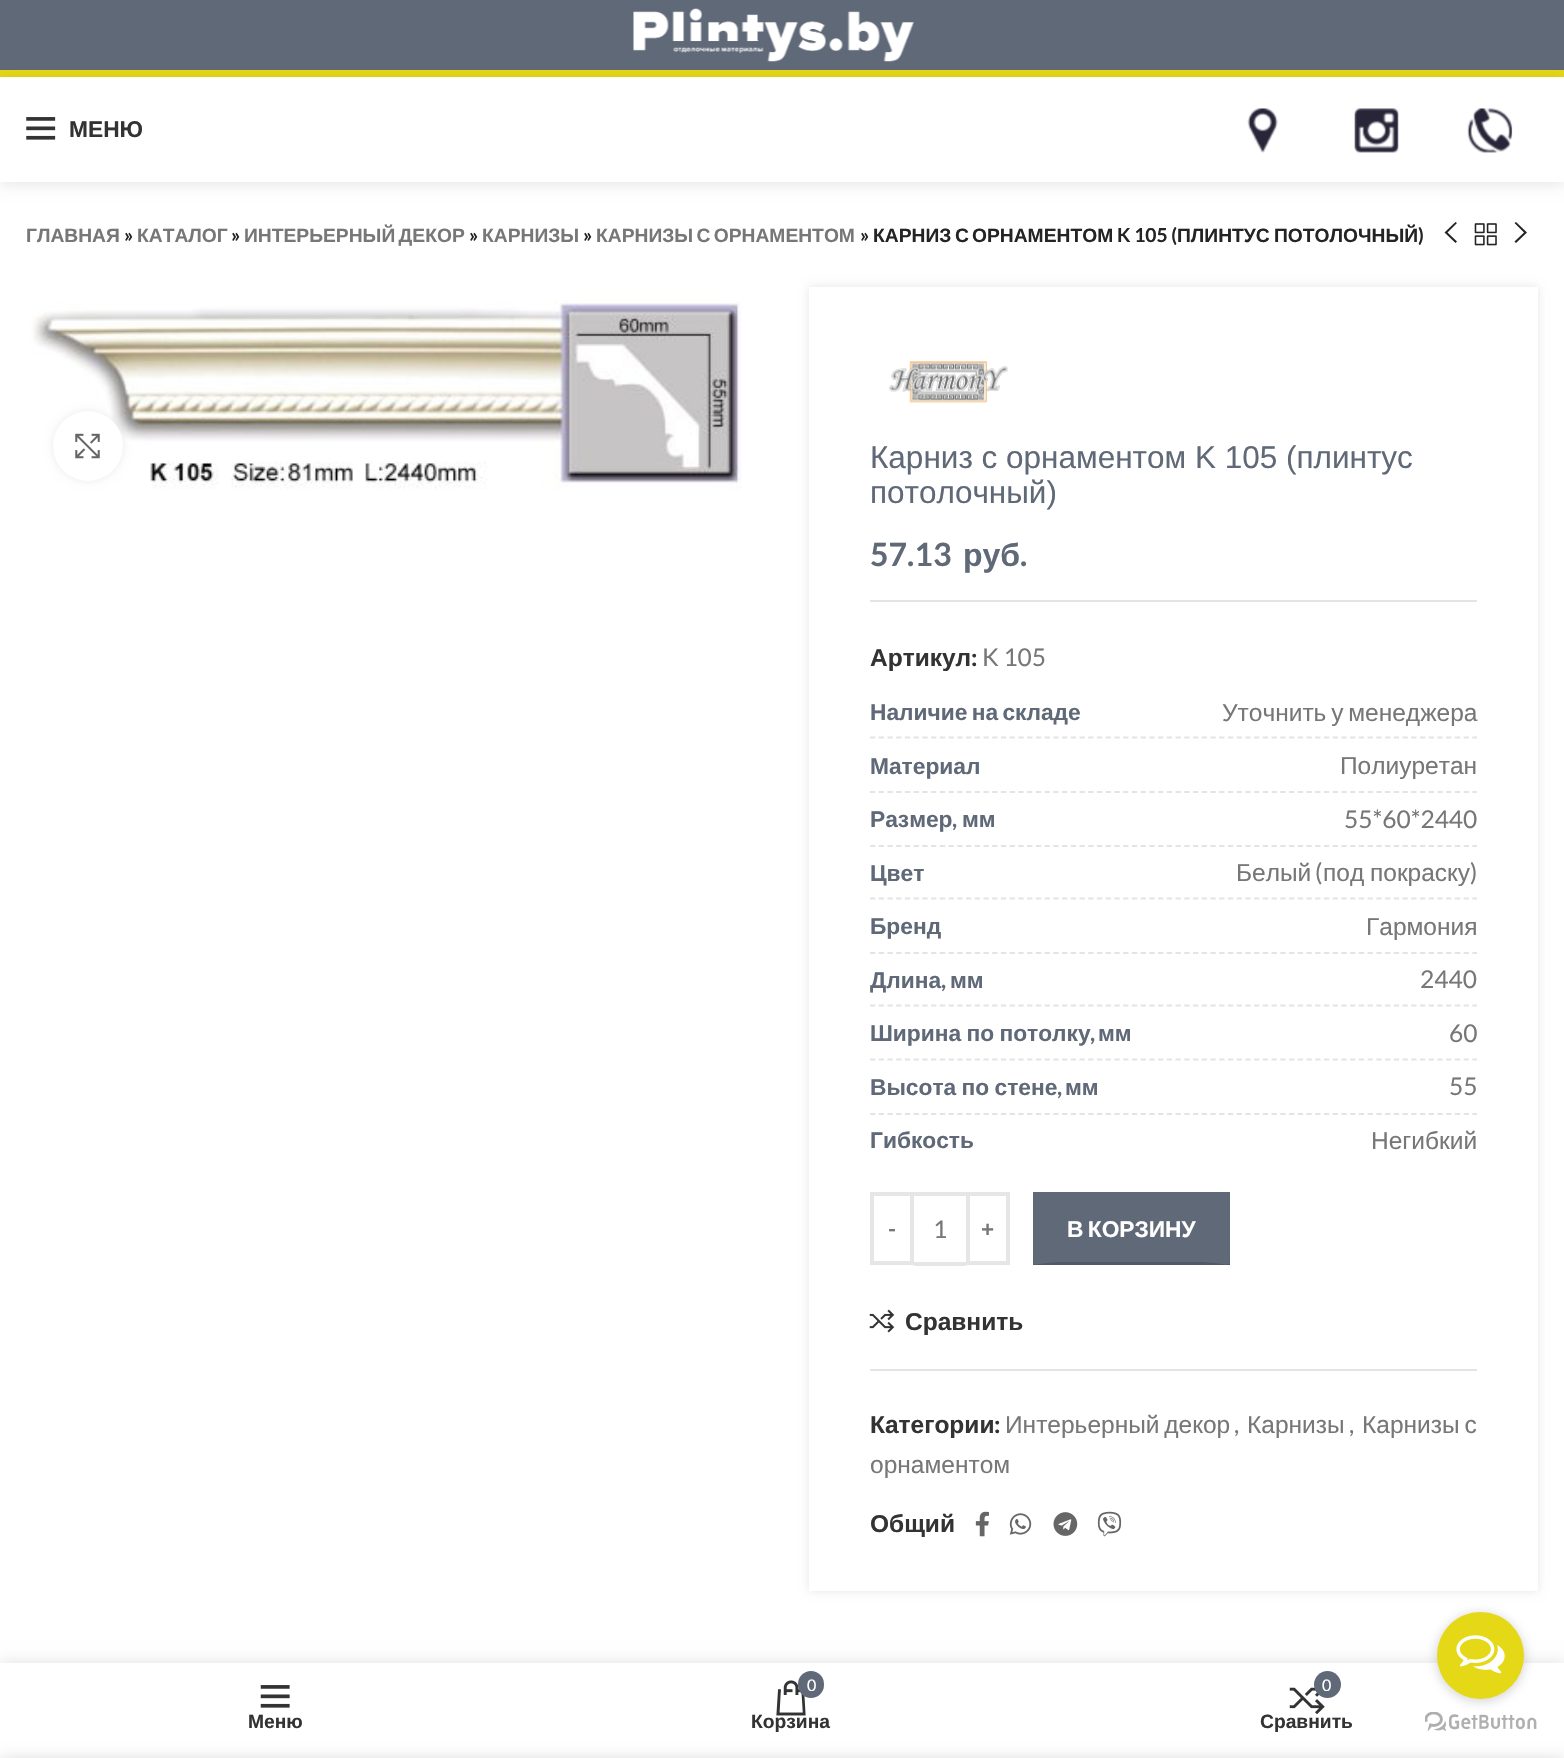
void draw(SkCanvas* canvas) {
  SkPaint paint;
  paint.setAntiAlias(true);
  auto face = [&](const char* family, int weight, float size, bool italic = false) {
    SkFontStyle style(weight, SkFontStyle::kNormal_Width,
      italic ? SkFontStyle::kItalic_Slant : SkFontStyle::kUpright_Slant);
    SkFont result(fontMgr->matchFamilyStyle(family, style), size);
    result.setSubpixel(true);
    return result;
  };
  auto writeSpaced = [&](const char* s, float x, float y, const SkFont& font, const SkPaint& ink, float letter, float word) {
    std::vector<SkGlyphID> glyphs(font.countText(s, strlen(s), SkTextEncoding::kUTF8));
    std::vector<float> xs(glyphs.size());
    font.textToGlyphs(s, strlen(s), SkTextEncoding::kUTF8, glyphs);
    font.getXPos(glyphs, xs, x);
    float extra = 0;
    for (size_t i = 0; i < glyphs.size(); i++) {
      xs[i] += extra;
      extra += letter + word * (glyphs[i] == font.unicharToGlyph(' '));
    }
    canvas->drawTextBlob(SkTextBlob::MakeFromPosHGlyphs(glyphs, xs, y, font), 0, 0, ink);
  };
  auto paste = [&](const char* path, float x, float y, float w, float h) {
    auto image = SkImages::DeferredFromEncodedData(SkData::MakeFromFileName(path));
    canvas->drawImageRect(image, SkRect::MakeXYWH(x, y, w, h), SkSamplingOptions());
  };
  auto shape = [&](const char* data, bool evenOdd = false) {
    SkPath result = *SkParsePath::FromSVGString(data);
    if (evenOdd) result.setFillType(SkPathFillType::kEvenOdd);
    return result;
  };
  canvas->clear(0xffffffff);
  paint.setColor(0xff606978);
  canvas->drawRect(SkRect::MakeXYWH(0, 0, 1564, 70), paint);
  paint.setColor(0xffe5d817);
  canvas->drawRect(SkRect::MakeXYWH(0, 70, 1564, 7), paint);
  canvas->save();
  canvas->clipPath(shape("M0 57H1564V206H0ZM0 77H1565V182H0Z", true), true);
  paint.setColor(0x1a000000);
  paint.setMaskFilter(SkMaskFilter::MakeBlur(kNormal_SkBlurStyle, 7));
  canvas->drawRect(SkRect::MakeXYWH(0, 79, 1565, 105), paint);
  paint.setMaskFilter(nullptr);
  canvas->restore();
  paste("img/1.png", 633, 8, 281, 54);
  paste("img/2.png", 26, 117, 30, 23);
  paste("img/3.png", 1247, 108, 31, 45);
  paste("img/4.png", 1354, 108, 45, 45);
  paste("img/5.png", 1467, 108, 46, 45);
  paint.setColor(0xff242424);
  canvas->drawPath(shape("M1457 223L1447.5 232.5L1457 241.5L1455.5 243L1444.5 232.5L1455.5 222Z"), paint);
  paste("img/6.png", 1474, 223, 23, 23);
  canvas->drawPath(shape("M1516 222L1527 232.5L1516 243L1514.5 241.5L1524 232.5L1514.5 223Z"), paint);
  paste("img/7.png", 31, 298, 711, 192);
  paint.setColor(0x14000000);
  paint.setMaskFilter(SkMaskFilter::MakeBlur(kNormal_SkBlurStyle, 4.5f));
  canvas->drawRoundRect(SkRect::MakeXYWH(53, 411, 70, 70), 35, 35, paint);
  paint.setMaskFilter(nullptr);
  paint.setColor(0xffffffff);
  canvas->drawCircle(88, 446, 35, paint);
  paste("img/8.png", 75, 433, 25, 26);
  paint.setColor(0x1a000000);
  paint.setMaskFilter(SkMaskFilter::MakeBlur(kNormal_SkBlurStyle, 4.5f));
  canvas->drawRect(SkRect::MakeXYWH(809, 287, 729, 1304), paint);
  paint.setMaskFilter(nullptr);
  paint.setColor(0xffffffff);
  canvas->drawRect(SkRect::MakeXYWH(809, 287, 729, 1304), paint);
  paste("img/9.png", 889, 361, 119, 42);
  paint.setColor(0xffe4e4e4);
  canvas->drawRect(SkRect::MakeXYWH(870, 600, 607, 2), paint);
  paint.setStroke(true);
  paint.setStrokeWidth(1.8f);
  paint.setPathEffect(SkDashPathEffect::Make({{5.25f, 3.48f}}, 0));
  canvas->drawPath(shape("M870 737.5H1477"), paint);
  paint.setPathEffect(nullptr);
  paint.setPathEffect(SkDashPathEffect::Make({{5.25f, 3.48f}}, 0));
  canvas->drawPath(shape("M870 792H1477"), paint);
  paint.setPathEffect(nullptr);
  paint.setPathEffect(SkDashPathEffect::Make({{5.25f, 3.48f}}, 0));
  canvas->drawPath(shape("M870 846H1477"), paint);
  paint.setPathEffect(nullptr);
  paint.setPathEffect(SkDashPathEffect::Make({{5.25f, 3.48f}}, 0));
  canvas->drawPath(shape("M870 898.5H1477"), paint);
  paint.setPathEffect(nullptr);
  paint.setPathEffect(SkDashPathEffect::Make({{5.25f, 3.48f}}, 0));
  canvas->drawPath(shape("M870 953H1477"), paint);
  paint.setPathEffect(nullptr);
  paint.setPathEffect(SkDashPathEffect::Make({{5.25f, 3.48f}}, 0));
  canvas->drawPath(shape("M870 1005.5H1477"), paint);
  paint.setPathEffect(nullptr);
  paint.setPathEffect(SkDashPathEffect::Make({{5.25f, 3.48f}}, 0));
  canvas->drawPath(shape("M870 1059.5H1477"), paint);
  paint.setPathEffect(nullptr);
  paint.setPathEffect(SkDashPathEffect::Make({{5.25f, 3.48f}}, 0));
  canvas->drawPath(shape("M870 1114H1477"), paint);
  paint.setPathEffect(nullptr);
  paint.setStrokeWidth(4);
  paint.setColor(0xffe6e6e6);
  canvas->drawRect(SkRect::MakeXYWH(872, 1194, 40, 69), paint);
  paint.setStroke(false);
  canvas->drawRect(SkRect::MakeXYWH(914, 1192, 52, 4), paint);
  canvas->drawRect(SkRect::MakeXYWH(914, 1262, 52, 4), paint);
  paint.setStroke(true);
  canvas->drawRect(SkRect::MakeXYWH(968, 1194, 40, 69), paint);
  paint.setStroke(false);
  paint.setColor(0xff606978);
  canvas->drawRect(SkRect::MakeXYWH(1033, 1192, 197, 73), paint);
  canvas->save();
  canvas->clipRect(SkRect::MakeXYWH(1033, 1192, 197, 73));
  paint.setColor(0xff525966);
  canvas->drawPath(shape("M859 1018H1404V1438H859ZM1033 1188H1197C1239 1188 1230 1178 1230 1213V1249C1230 1273 1234 1262 1197 1262H1065C1028 1262 1032 1273 1032 1249Z", true), paint);
  canvas->restore();
  paste("img/10.png", 869, 1309, 26, 24);
  paint.setColor(0xffe4e4e4);
  canvas->drawRect(SkRect::MakeXYWH(870, 1369, 607, 2), paint);
  paste("img/11.png", 975, 1511, 14, 26);
  paste("img/12.png", 1009, 1513, 23, 22);
  paste("img/13.png", 1053, 1512, 25, 24);
  paste("img/14.png", 1097, 1511, 25, 26);
  paint.setColor(0x1f000000);
  paint.setMaskFilter(SkMaskFilter::MakeBlur(kNormal_SkBlurStyle, 8));
  canvas->drawRect(SkRect::MakeXYWH(0, 1663, 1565, 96), paint);
  paint.setMaskFilter(nullptr);
  paint.setColor(0xffffffff);
  canvas->drawRect(SkRect::MakeXYWH(0, 1663, 1564, 95), paint);
  paste("img/15.png", 260, 1685, 30, 23);
  paste("img/16.png", 776, 1680, 30, 36);
  paint.setColor(0xff606978);
  canvas->drawRoundRect(SkRect::MakeXYWH(798, 1671, 26, 27), 13, 13, paint);
  paste("img/17.png", 1289, 1687, 36, 28);
  canvas->drawCircle(1327.5f, 1684.5f, 13.5f, paint);
  paste("img/19.png", 1425, 1712, 112, 19);
  paint.setColor(0x66888888);
  paint.setMaskFilter(SkMaskFilter::MakeBlur(kNormal_SkBlurStyle, 6));
  canvas->drawRoundRect(SkRect::MakeXYWH(1437, 1614, 87, 87), 43.5f, 43.5f, paint);
  paint.setMaskFilter(nullptr);
  paint.setColor(0xffe5d817);
  canvas->drawCircle(1480.5f, 1655.5f, 43.5f, paint);
  paste("img/18.png", 1456, 1635, 49, 39);
  paint.setColor(0x24000000);
  paint.setMaskFilter(SkMaskFilter::MakeBlur(kNormal_SkBlurStyle, 8));
  canvas->drawRect(SkRect::MakeXYWH(0, 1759, 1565, 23), paint);
  paint.setMaskFilter(nullptr);
  auto f0 = face("Liberation Sans", 700, 22.75f);
  paint.setColor(0xff333333);
  canvas->drawString("МЕНЮ", 69, 137, f0, paint);
  auto f1 = face("Liberation Sans", 700, 19.25f);
  paint.setColor(0xff777777);
  canvas->drawString("ГЛАВНАЯ", 26, 242, f1, paint);
  auto f2 = face("Lato", 700, 19.25f);
  paint.setColor(0xff242424);
  canvas->drawString("»", 124, 242, f2, paint);
  paint.setColor(0xff777777);
  canvas->drawString("КАТАЛОГ", 137, 242, f1, paint);
  paint.setColor(0xff242424);
  canvas->drawString("»", 231, 242, f2, paint);
  paint.setColor(0xff777777);
  writeSpaced("ИНТЕРЬЕРНЫЙ ДЕКОР", 244, 242, f1, paint, 0, -2);
  paint.setColor(0xff242424);
  canvas->drawString("»", 469, 242, f2, paint);
  paint.setColor(0xff777777);
  canvas->drawString("КАРНИЗЫ", 482, 242, f1, paint);
  paint.setColor(0xff242424);
  canvas->drawString("»", 583, 242, f2, paint);
  paint.setColor(0xff777777);
  writeSpaced("КАРНИЗЫ С ОРНАМЕНТОМ", 596, 242, f1, paint, 0, -2);
  paint.setColor(0xff242424);
  canvas->drawString("»", 860, 242, f2, paint);
  {
    const struct { const char* s; float x, y; } items[] = {
      {"КАРНИЗ", 873, 242},
      {"С", 955, 242},
      {"ОРНАМЕНТОМ", 972, 242},
    };
    for (auto [s, x, y] : items) {
      canvas->drawString(s, x, y, f1, paint);
    }
  }
  canvas->drawString("K 105 (", 1117, 242, f2, paint);
  canvas->drawString("ПЛИНТУС", 1177, 242, f1, paint);
  canvas->drawString("ПОТОЛОЧНЫЙ", 1274, 242, f1, paint);
  canvas->drawString(")", 1418, 242, f2, paint);
  auto f3 = face("Liberation Sans", 400, 31.5f);
  paint.setColor(0xff606977);
  canvas->drawString("Карниз с орнаментом K 105 (плинтус", 870, 468, f3, paint);
  canvas->drawString("потолочный)", 870, 503, f3, paint);
  auto f4 = face("Lato", 700, 32);
  canvas->drawString("57.13", 870, 566, f4, paint);
  auto f5 = face("Liberation Sans", 700, 32);
  canvas->drawString("руб", 963, 566, f5, paint);
  canvas->drawString(".", 1020, 566, f4, paint);
  auto f6 = face("Liberation Sans", 700, 24.5f);
  paint.setColor(0xff333333);
  canvas->drawString("Артикул", 870, 666, f6, paint);
  auto f7 = face("Lato", 700, 24.5f);
  canvas->drawString(":", 971, 666, f7, paint);
  auto f8 = face("Lato", 400, 24.5f);
  paint.setColor(0xff777777);
  canvas->drawString("K 105", 982, 666, f8, paint);
  paint.setColor(0xff606977);
  writeSpaced("Наличие на складе", 870, 720, f0, paint, 0, -2);
  auto f9 = face("Liberation Sans", 400, 24.5f);
  paint.setColor(0xff777777);
  writeSpaced("Уточнить у менеджера", 1222, 721, f9, paint, 0, -2);
  paint.setColor(0xff606977);
  canvas->drawString("Материал", 870, 774, f0, paint);
  paint.setColor(0xff777777);
  canvas->drawString("Полиуретан", 1340, 774, f9, paint);
  paint.setColor(0xff606977);
  canvas->drawString("Размер", 870, 827, f0, paint);
  auto f10 = face("Lato", 700, 22.75f);
  canvas->drawString(",", 952, 827, f10, paint);
  canvas->drawString("мм", 962, 827, f0, paint);
  paint.setColor(0xff777777);
  canvas->drawString("55*60*2440", 1344, 828, f8, paint);
  paint.setColor(0xff606977);
  canvas->drawString("Цвет", 870, 881, f0, paint);
  paint.setColor(0xff777777);
  canvas->drawString("Белый", 1236, 881, f9, paint);
  canvas->drawString("(", 1315, 881, f8, paint);
  writeSpaced("под покраску", 1323, 881, f9, paint, 0, -1);
  canvas->drawString(")", 1470, 881, f8, paint);
  paint.setColor(0xff606977);
  canvas->drawString("Бренд", 870, 934, f0, paint);
  paint.setColor(0xff777777);
  canvas->drawString("Гармония", 1366, 935, f9, paint);
  paint.setColor(0xff606977);
  canvas->drawString("Длина", 870, 988, f0, paint);
  canvas->drawString(",", 941, 988, f10, paint);
  canvas->drawString("мм", 950, 988, f0, paint);
  paint.setColor(0xff777777);
  canvas->drawString("2440", 1420, 988, f8, paint);
  paint.setColor(0xff606977);
  writeSpaced("Ширина по потолку", 870, 1041, f0, paint, 0, -1);
  canvas->drawString(",", 1090, 1041, f10, paint);
  canvas->drawString("мм", 1098, 1041, f0, paint);
  paint.setColor(0xff777777);
  canvas->drawString("60", 1449, 1042, f8, paint);
  paint.setColor(0xff606977);
  writeSpaced("Высота по стене", 870, 1095, f0, paint, 0, -1);
  canvas->drawString(",", 1057, 1095, f10, paint);
  canvas->drawString("мм", 1065, 1095, f0, paint);
  paint.setColor(0xff777777);
  canvas->drawString("55", 1449, 1095, f8, paint);
  paint.setColor(0xff606977);
  canvas->drawString("Гибкость", 870, 1148, f0, paint);
  paint.setColor(0xff777777);
  canvas->drawString("Негибкий", 1371, 1149, f9, paint);
  canvas->drawString("-", 888, 1237, f10, paint);
  canvas->drawString("1", 933, 1238, f8, paint);
  canvas->drawString("+", 981, 1237, f10, paint);
  paint.setColor(0xffffffff);
  writeSpaced("В КОРЗИНУ", 1067, 1237, f0, paint, 0, -2);
  paint.setColor(0xff333333);
  canvas->drawString("Сравнить", 905, 1330, f6, paint);
  canvas->drawString("Категории", 870, 1433, f6, paint);
  canvas->drawString(":", 994, 1433, f7, paint);
  paint.setColor(0xff777777);
  writeSpaced("Интерьерный декор", 1005, 1433, f9, paint, 0, -2);
  canvas->drawString(",", 1234, 1433, f8, paint);
  canvas->drawString("Карнизы", 1247, 1433, f9, paint);
  canvas->drawString(",", 1349, 1433, f8, paint);
  writeSpaced("Карнизы с", 1362, 1433, f9, paint, 0, -2);
  canvas->drawString("орнаментом", 870, 1473, f9, paint);
  paint.setColor(0xff333333);
  canvas->drawString("Общий", 870, 1532, f6, paint);
  canvas->drawString("Меню", 248, 1728, f1, paint);
  auto f11 = face("Lato", 400, 16);
  paint.setColor(0xffffffff);
  canvas->drawString("0", 807, 1691, f11, paint);
  paint.setColor(0xff333333);
  canvas->drawString("Корзина", 751, 1728, f1, paint);
  paint.setColor(0xffffffff);
  canvas->drawString("0", 1322, 1691, f11, paint);
  paint.setColor(0xff333333);
  canvas->drawString("Сравнить", 1260, 1728, f1, paint);
}
